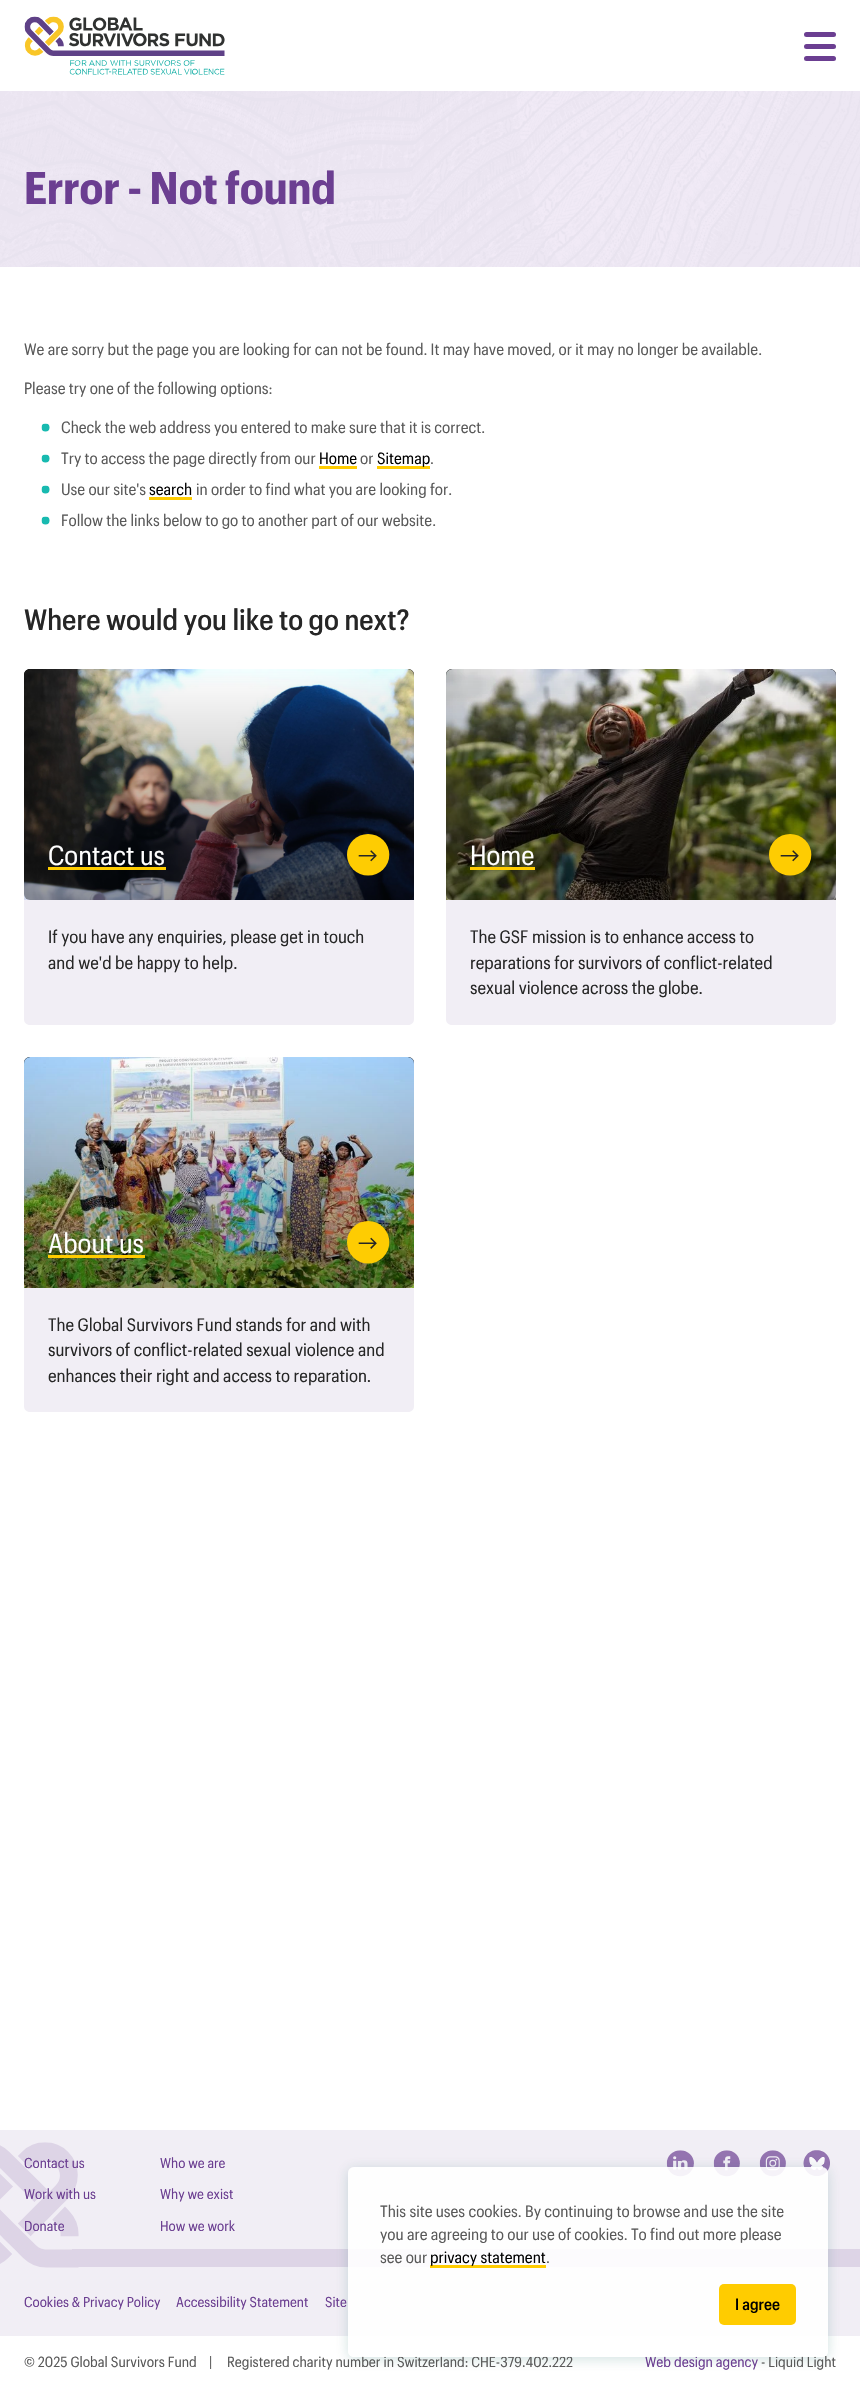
void draw(SkCanvas* canvas) {
  SkPaint paint;
  paint.setAntiAlias(true);
  auto face = [&](const char* family, int weight, float size, bool italic = false) {
    SkFontStyle style(weight, SkFontStyle::kNormal_Width,
      italic ? SkFontStyle::kItalic_Slant : SkFontStyle::kUpright_Slant);
    SkFont result(fontMgr->matchFamilyStyle(family, style), size);
    result.setSubpixel(true);
    return result;
  };
  auto paste = [&](const char* path, float x, float y, float w, float h) {
    auto image = SkImages::DeferredFromEncodedData(SkData::MakeFromFileName(path));
    canvas->drawImageRect(image, SkRect::MakeXYWH(x, y, w, h), SkSamplingOptions());
  };
  auto shape = [&](const char* data, bool evenOdd = false) {
    SkPath result = *SkParsePath::FromSVGString(data);
    if (evenOdd) result.setFillType(SkPathFillType::kEvenOdd);
    return result;
  };
  canvas->clear(0xffffffff);
  paste("img/1.png", 24, 16, 201, 59);
  paint.setColor(0xff6b3e91);
  canvas->drawRoundRect(SkRect::MakeXYWH(804, 32, 32, 5), 2.5f, 2.5f, paint);
  canvas->drawRoundRect(SkRect::MakeXYWH(804, 44, 32, 5), 2.5f, 2.5f, paint);
  canvas->drawRoundRect(SkRect::MakeXYWH(804, 56, 32, 5), 2.5f, 2.5f, paint);
  paste("img/2.png", 0, 91, 860, 176);
  paste("img/3.png", 41, 423, 9, 9);
  paste("img/3.png", 41, 454, 9, 9);
  paint.setColor(0xffffcc00);
  canvas->drawRect(SkRect::MakeXYWH(319, 466, 38, 3), paint);
  canvas->drawRect(SkRect::MakeXYWH(377, 466, 53, 3), paint);
  paste("img/3.png", 41, 485, 9, 9);
  canvas->drawRect(SkRect::MakeXYWH(149, 497, 43, 3), paint);
  paste("img/3.png", 41, 516, 9, 9);
  paint.setColor(0xff000000);
  canvas->drawPath(shape("M30 669H408C411.5 669 414 671.5 414 675V900H24V675C24 671.5 26.5 669 30 669Z"), paint);
  paste("img/4.png", 24, 669, 390, 231);
  {
    const SkColor colors[] = {0x66000000, 0x00000000};
    const float stops[] = {0, 1};
    const SkPoint ends[] = {{219, 900}, {219, 669}};
    paint.setShader(SkGradientShader::MakeLinear(ends, colors, stops, 2, SkTileMode::kClamp));
    paint.setAlpha(255);
  }
  canvas->drawRoundRect(SkRect::MakeXYWH(24, 669, 390, 231), 6, 6, paint);
  paint.setShader(nullptr);
  paint.setColor(0xffffcc00);
  canvas->drawRect(SkRect::MakeXYWH(48, 867, 118, 3), paint);
  paste("img/5.png", 347, 834, 43, 42);
  paint.setColor(0xfff1eef5);
  canvas->drawPath(shape("M24 900H414V1019C414 1022.5 411.5 1025 408 1025H30C26.5 1025 24 1022.5 24 1019Z"), paint);
  paint.setColor(0xff000000);
  canvas->drawPath(shape("M452 669H830C833.5 669 836 671.5 836 675V900H446V675C446 671.5 448.5 669 452 669Z"), paint);
  paste("img/6.png", 446, 669, 390, 231);
  {
    const SkColor colors[] = {0x66000000, 0x00000000};
    const float stops[] = {0, 1};
    const SkPoint ends[] = {{641, 900}, {641, 669}};
    paint.setShader(SkGradientShader::MakeLinear(ends, colors, stops, 2, SkTileMode::kClamp));
    paint.setAlpha(255);
  }
  canvas->drawRoundRect(SkRect::MakeXYWH(446, 669, 390, 231), 6, 6, paint);
  paint.setShader(nullptr);
  paint.setColor(0xffffcc00);
  canvas->drawRect(SkRect::MakeXYWH(470, 867, 65, 3), paint);
  paste("img/7.png", 769, 834, 43, 42);
  paint.setColor(0xfff1eef5);
  canvas->drawPath(shape("M446 900H836V1019C836 1022.5 833.5 1025 830 1025H452C448.5 1025 446 1022.5 446 1019Z"), paint);
  paint.setColor(0xff000000);
  canvas->drawPath(shape("M30 1057H408C411.5 1057 414 1059.5 414 1063V1288H24V1063C24 1059.5 26.5 1057 30 1057Z"), paint);
  paste("img/8.png", 24, 1057, 390, 231);
  {
    const SkColor colors[] = {0x66000000, 0x00000000};
    const float stops[] = {0, 1};
    const SkPoint ends[] = {{219, 1288}, {219, 1057}};
    paint.setShader(SkGradientShader::MakeLinear(ends, colors, stops, 2, SkTileMode::kClamp));
    paint.setAlpha(255);
  }
  canvas->drawRoundRect(SkRect::MakeXYWH(24, 1057, 390, 231), 6, 6, paint);
  paint.setShader(nullptr);
  paint.setColor(0xffffcc00);
  canvas->drawRect(SkRect::MakeXYWH(48, 1255, 97, 3), paint);
  paste("img/9.png", 347, 1221, 43, 43);
  paint.setColor(0xfff1eef5);
  canvas->drawPath(shape("M24 1288H414V1406C414 1409.5 411.5 1412 408 1412H30C26.5 1412 24 1409.5 24 1406Z"), paint);
  canvas->drawRect(SkRect::MakeXYWH(0, 2130, 860, 206), paint);
  paste("img/10.png", 0, 2142, 79, 126);
  paste("img/11.png", 666, 2150, 28, 27);
  paste("img/12.png", 713, 2150, 27, 27);
  paste("img/13.png", 759, 2150, 27, 27);
  paste("img/14.png", 803, 2150, 27, 26);
  paint.setColor(0xffddd4e6);
  canvas->drawRect(SkRect::MakeXYWH(72, 2249, 788, 18), paint);
  canvas->save();
  canvas->clipPath(shape("M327 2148H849V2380H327ZM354 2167H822C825.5 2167 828 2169.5 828 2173V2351C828 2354.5 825.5 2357 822 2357H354C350.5 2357 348 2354.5 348 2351V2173C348 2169.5 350.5 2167 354 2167Z", true), true);
  paint.setColor(0x30056159);
  paint.setMaskFilter(SkMaskFilter::MakeBlur(kNormal_SkBlurStyle, 6.5f));
  canvas->drawRoundRect(SkRect::MakeXYWH(348, 2169, 480, 190), 6, 6, paint);
  paint.setMaskFilter(nullptr);
  canvas->restore();
  auto f0 = face("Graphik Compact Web", 700, 44.75f);
  paint.setColor(0xff6b3e91);
  canvas->drawString("Error - Not found", 24, 204, f0, paint);
  auto f1 = face("Graphik Compact Web", 400, 16);
  paint.setColor(0xff595959);
  {
    const struct { const char* s; float x, y; } items[] = {
      {"We are sorry but the page you are looking for can not be found. It may have moved, or it may no longer be available.", 24, 355},
      {"Please try one of the following options:", 24, 394},
      {"Check the web address you entered to make sure that it is correct.", 61, 433},
      {"Try to access the page directly from our", 61, 464},
    };
    for (auto [s, x, y] : items) {
      canvas->drawString(s, x, y, f1, paint);
    }
  }
  paint.setColor(0xff000000);
  canvas->drawString("Home", 319, 464, f1, paint);
  paint.setColor(0xff595959);
  canvas->drawString("or", 360, 464, f1, paint);
  paint.setColor(0xff000000);
  canvas->drawString("Sitemap", 377, 464, f1, paint);
  paint.setColor(0xff595959);
  canvas->drawString(".", 430, 464, f1, paint);
  canvas->drawString("Use our site's", 61, 495, f1, paint);
  paint.setColor(0xff000000);
  canvas->drawString("search", 149, 495, f1, paint);
  paint.setColor(0xff595959);
  canvas->drawString("in order to find what you are looking for.", 196, 495, f1, paint);
  canvas->drawString("Follow the links below to go to another part of our website.", 61, 526, f1, paint);
  auto f2 = face("Graphik Compact Web", 500, 28.75f);
  paint.setColor(0xff262626);
  canvas->drawString("Where would you like to go next?", 24, 630, f2, paint);
  auto f3 = face("Graphik Compact Web", 400, 27);
  paint.setColor(0xffffffff);
  canvas->drawString("Contact us", 48, 865, f3, paint);
  auto f4 = face("Graphik Compact Web", 400, 17.6f);
  paint.setColor(0xff262626);
  canvas->drawString("If you have any enquiries, please get in touch", 48, 943, f4, paint);
  canvas->drawString("and we'd be happy to help.", 48, 969, f4, paint);
  paint.setColor(0xffffffff);
  canvas->drawString("Home", 470, 865, f3, paint);
  paint.setColor(0xff262626);
  {
    const struct { const char* s; float x, y; } items[] = {
      {"The GSF mission is to enhance access to", 470, 943},
      {"reparations for survivors of conflict-related", 470, 969},
      {"sexual violence across the globe.", 470, 994},
    };
    for (auto [s, x, y] : items) {
      canvas->drawString(s, x, y, f4, paint);
    }
  }
  paint.setColor(0xffffffff);
  canvas->drawString("About us", 48, 1253, f3, paint);
  paint.setColor(0xff262626);
  {
    const struct { const char* s; float x, y; } items[] = {
      {"The Global Survivors Fund stands for and with", 48, 1331},
      {"survivors of conflict-related sexual violence and", 48, 1356},
      {"enhances their right and access to reparation.", 48, 1382},
    };
    for (auto [s, x, y] : items) {
      canvas->drawString(s, x, y, f4, paint);
    }
  }
  auto f5 = face("Graphik Compact Web", 400, 14);
  paint.setColor(0xff6b3e91);
  {
    const struct { const char* s; float x, y; } items[] = {
      {"Contact us", 24, 2168},
      {"Work with us", 24, 2199},
      {"Donate", 24, 2231},
      {"Who we are", 160, 2168},
      {"Why we exist", 160, 2199},
      {"How we work", 160, 2231},
      {"Cookies & Privacy Policy", 24, 2307},
      {"Accessibility Statement", 176, 2307},
      {"Site", 325, 2307},
    };
    for (auto [s, x, y] : items) {
      canvas->drawString(s, x, y, f5, paint);
    }
  }
  auto f6 = face("Graphik Compact Web", 400, 14.4f);
  paint.setColor(0xff595959);
  {
    const struct { const char* s; float x, y; } items[] = {
      {"© 2025 Global Survivors Fund", 24, 2367},
      {"|", 209, 2367},
      {"Registered charity number in Switzerland: CHE-379.402.222", 227, 2367},
    };
    for (auto [s, x, y] : items) {
      canvas->drawString(s, x, y, f6, paint);
    }
  }
  paint.setColor(0xff6b3e91);
  canvas->drawString("Web design agency", 645, 2367, f6, paint);
  paint.setColor(0xff595959);
  canvas->drawString("- Liquid Light", 761, 2367, f6, paint);
  paint.setColor(0xe6ffffff);
  canvas->drawRoundRect(SkRect::MakeXYWH(348, 2167, 480, 190), 6, 6, paint);
  paint.setColor(0xff595959);
  {
    const struct { const char* s; float x, y; } items[] = {
      {"This site uses cookies. By continuing to browse and use the site", 380, 2217},
      {"you are agreeing to our use of cookies. To find out more please", 380, 2240},
      {"see our", 380, 2263},
    };
    for (auto [s, x, y] : items) {
      canvas->drawString(s, x, y, f1, paint);
    }
  }
  paint.setColor(0xffffcc00);
  canvas->drawRect(SkRect::MakeXYWH(430, 2265, 116, 3), paint);
  paint.setColor(0xff000000);
  canvas->drawString("privacy statement", 430, 2263, f1, paint);
  paint.setColor(0xff595959);
  canvas->drawString(".", 546, 2263, f1, paint);
  paint.setColor(0xffffcc00);
  canvas->drawRoundRect(SkRect::MakeXYWH(719, 2284, 77, 41), 5, 5, paint);
  auto f7 = face("Graphik Compact Web", 500, 16);
  paint.setColor(0xff000000);
  canvas->drawString("I agree", 735, 2310, f7, paint);
}
